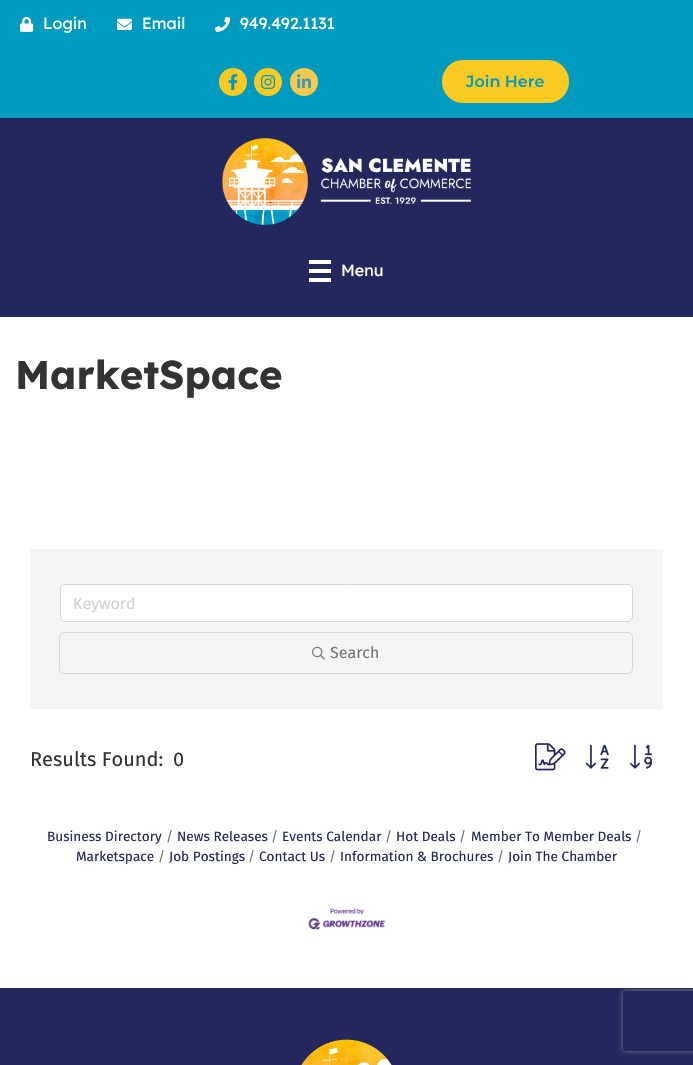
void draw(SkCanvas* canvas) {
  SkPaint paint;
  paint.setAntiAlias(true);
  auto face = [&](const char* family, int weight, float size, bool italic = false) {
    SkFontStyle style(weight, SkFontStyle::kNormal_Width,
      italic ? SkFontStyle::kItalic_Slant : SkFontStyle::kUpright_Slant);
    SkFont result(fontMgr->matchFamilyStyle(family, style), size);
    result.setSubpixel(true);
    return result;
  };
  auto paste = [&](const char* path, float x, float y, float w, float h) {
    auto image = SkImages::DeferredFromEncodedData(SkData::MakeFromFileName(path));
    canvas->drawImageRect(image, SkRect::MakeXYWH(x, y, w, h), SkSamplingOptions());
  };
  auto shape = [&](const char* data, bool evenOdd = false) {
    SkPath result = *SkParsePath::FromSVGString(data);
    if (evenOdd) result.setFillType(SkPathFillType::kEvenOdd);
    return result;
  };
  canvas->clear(0xff009bbf);
  paste("img/1.png", 20, 16, 14, 16);
  paste("img/2.png", 117, 18, 15, 12);
  paste("img/3.png", 215, 16, 15, 16);
  paint.setColor(0xfffdca21);
  canvas->drawCircle(233, 82, 14, paint);
  paste("img/4.png", 228, 74, 10, 16);
  canvas->drawCircle(268, 82, 14, paint);
  paste("img/5.png", 261, 75, 15, 14);
  paint.setColor(0xfff6ca4d);
  canvas->drawCircle(304, 82, 14, paint);
  paste("img/6.png", 297, 74, 14, 14);
  paint.setColor(0xfffdca21);
  canvas->drawRoundRect(SkRect::MakeXYWH(442, 60, 127, 43), 21, 21, paint);
  paint.setColor(0xff23275e);
  canvas->drawRect(SkRect::MakeXYWH(0, 118, 693, 199), paint);
  paste("img/7.png", 222, 138, 249, 87);
  {
    const struct { float x, y, w, h; SkColor color; } items[] = {
      {309, 260, 22, 4, 0xffffffff},
      {309, 269, 22, 4, 0xffffffff},
      {309, 278, 22, 4, 0xffffffff},
      {0, 317, 693, 671, 0xffffffff},
      {30, 549, 633, 160, 0xfff5f5f5},
    };
    for (auto [x, y, w, h, color] : items) {
      paint.setColor(color);
      canvas->drawRect(SkRect::MakeXYWH(x, y, w, h), paint);
    }
  }
  paint.setColor(0xffffffff);
  canvas->drawRoundRect(SkRect::MakeXYWH(60.5f, 584.5f, 572, 37), 4.5f, 4.5f, paint);
  paint.setStroke(true);
  paint.setStrokeWidth(1);
  paint.setColor(0xffd6d6d6);
  canvas->drawRoundRect(SkRect::MakeXYWH(60.5f, 584.5f, 572, 37), 4.5f, 4.5f, paint);
  canvas->drawRoundRect(SkRect::MakeXYWH(59.5f, 632.5f, 573, 41), 4.5f, 4.5f, paint);
  paste("img/8.png", 312, 646, 13, 14);
  paste("img/9.png", 535, 743, 31, 28);
  paste("img/10.png", 585, 744, 24, 25);
  paste("img/11.png", 629, 744, 23, 25);
  paste("img/12.png", 308, 908, 78, 22);
  paint.setStroke(false);
  paint.setColor(0xff23275e);
  canvas->drawRect(SkRect::MakeXYWH(0, 988, 693, 77), paint);
  paste("img/13.png", 301, 1039, 91, 26);
  canvas->save();
  canvas->clipPath(shape("M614 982H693V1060H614ZM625 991H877C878 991 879 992 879 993V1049C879 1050 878 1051 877 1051H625C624 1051 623 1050 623 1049V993C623 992 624 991 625 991Z", true), true);
  paint.setColor(0xff808080);
  paint.setMaskFilter(SkMaskFilter::MakeBlur(kNormal_SkBlurStyle, 2.5f));
  canvas->drawRoundRect(SkRect::MakeXYWH(623, 991, 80, 60), 2, 2, paint);
  paint.setMaskFilter(nullptr);
  canvas->restore();
  auto f0 = face("Lexend Deca", 400, 16);
  paint.setColor(0xffffffff);
  {
    const struct { const char* s; float x, y; } items[] = {
      {"Login", 43, 29},
      {"Email", 142, 29},
      {"949.492.1131", 240, 29},
    };
    for (auto [s, x, y] : items) {
      canvas->drawString(s, x, y, f0, paint);
    }
  }
  auto f1 = face("Montserrat", 100, 16);
  paint.setColor(0xff009bbf);
  canvas->drawString("Join Here", 466, 87, f1, paint);
  paint.setColor(0xffffffff);
  canvas->drawString("Menu", 341, 276, f0, paint);
  auto f2 = face("Lexend Deca", 700, 40);
  paint.setColor(0xff333333);
  canvas->drawString("MarketSpace", 15, 389, f2, paint);
  auto f3 = face("Fira Sans", 400, 16);
  paint.setColor(0xffd2d2d2);
  canvas->drawString("Keyword", 73, 609, f3, paint);
  paint.setColor(0xff777777);
  canvas->drawString("Search", 330, 658, f3, paint);
  auto f4 = face("Fira Sans", 400, 20);
  paint.setColor(0xff333333);
  canvas->drawString("Results Found:", 30, 766, f4, paint);
  canvas->drawString("0", 173, 766, f4, paint);
  auto f5 = face("Fira Sans", 400, 13.6f);
  paint.setColor(0xff23275e);
  canvas->drawString("Business Directory", 47, 841, f5, paint);
  paint.setColor(0xff6c757d);
  canvas->drawString("/", 635, 841, f5, paint);
  paint.setColor(0xff23275e);
  canvas->drawString("Marketspace", 76, 861, f5, paint);
  paint.setColor(0xff6c757d);
  canvas->drawString("/", 166, 841, f5, paint);
  paint.setColor(0xff23275e);
  canvas->drawString("News Releases", 177, 841, f5, paint);
  paint.setColor(0xff6c757d);
  canvas->drawString("/", 271, 841, f5, paint);
  paint.setColor(0xff23275e);
  canvas->drawString("Events Calendar", 282, 841, f5, paint);
  paint.setColor(0xff6c757d);
  canvas->drawString("/", 385, 841, f5, paint);
  paint.setColor(0xff23275e);
  canvas->drawString("Hot Deals", 396, 841, f5, paint);
  paint.setColor(0xff6c757d);
  canvas->drawString("/", 459, 841, f5, paint);
  paint.setColor(0xff23275e);
  canvas->drawString("Member To Member Deals", 471, 841, f5, paint);
  paint.setColor(0xff6c757d);
  canvas->drawString("/", 158, 861, f5, paint);
  paint.setColor(0xff23275e);
  canvas->drawString("Job Postings", 169, 861, f5, paint);
  paint.setColor(0xff6c757d);
  canvas->drawString("/", 248, 861, f5, paint);
  paint.setColor(0xff23275e);
  canvas->drawString("Contact Us", 259, 861, f5, paint);
  paint.setColor(0xff6c757d);
  canvas->drawString("/", 329, 861, f5, paint);
  paint.setColor(0xff23275e);
  canvas->drawString("Information & Brochures", 340, 861, f5, paint);
  paint.setColor(0xff6c757d);
  canvas->drawString("/", 497, 861, f5, paint);
  paint.setColor(0xff23275e);
  canvas->drawString("Join The Chamber", 508, 861, f5, paint);
}
